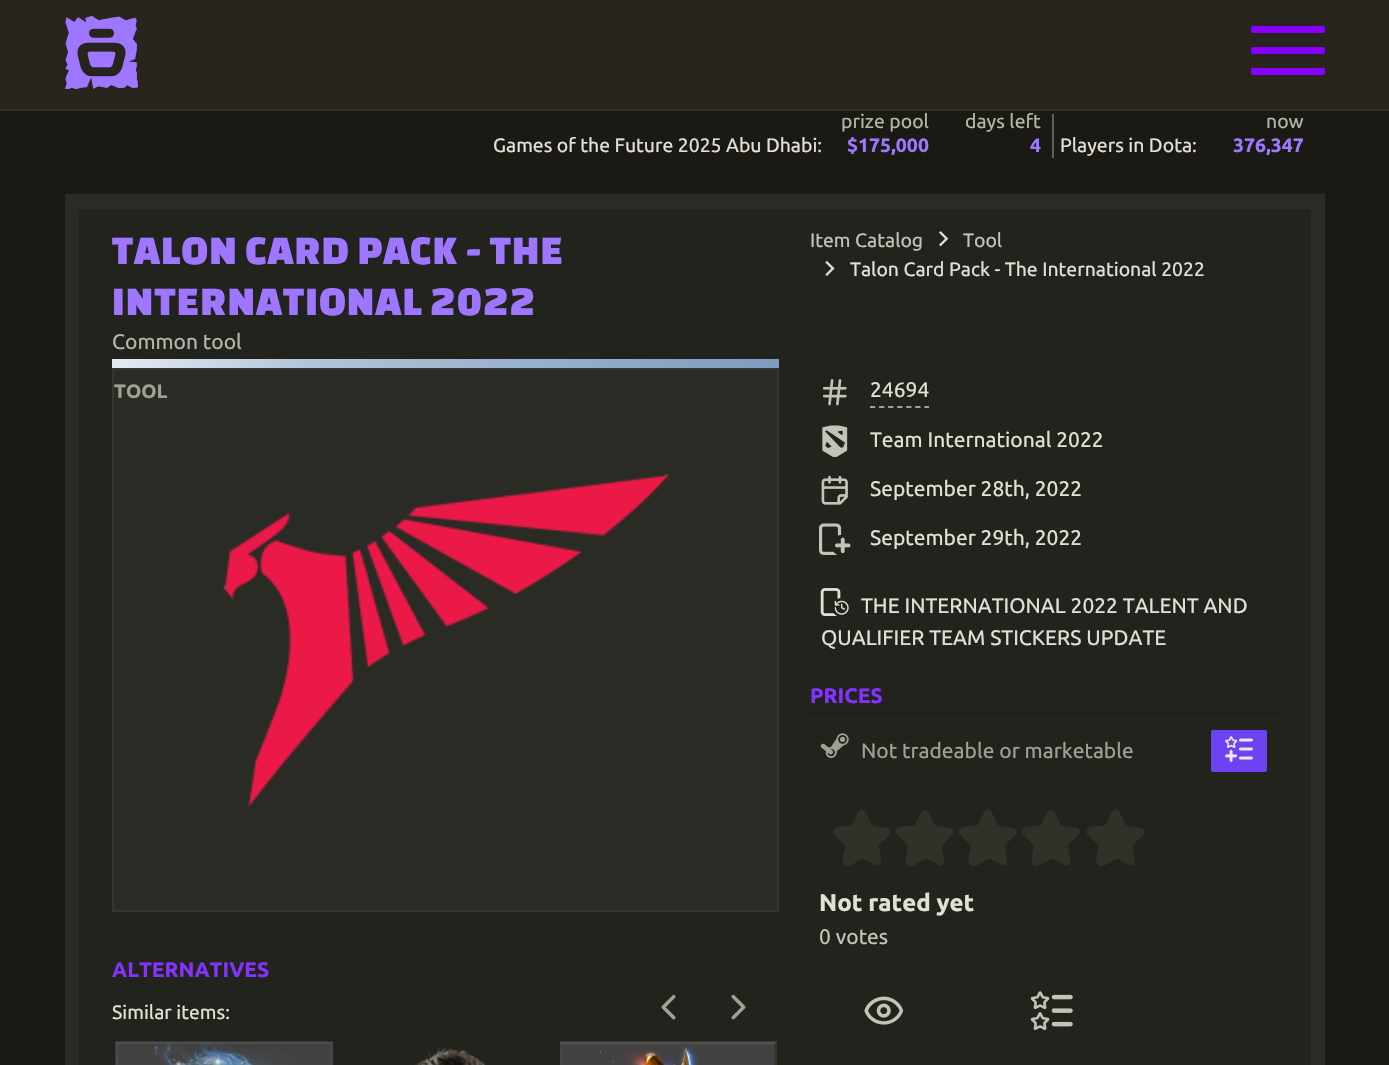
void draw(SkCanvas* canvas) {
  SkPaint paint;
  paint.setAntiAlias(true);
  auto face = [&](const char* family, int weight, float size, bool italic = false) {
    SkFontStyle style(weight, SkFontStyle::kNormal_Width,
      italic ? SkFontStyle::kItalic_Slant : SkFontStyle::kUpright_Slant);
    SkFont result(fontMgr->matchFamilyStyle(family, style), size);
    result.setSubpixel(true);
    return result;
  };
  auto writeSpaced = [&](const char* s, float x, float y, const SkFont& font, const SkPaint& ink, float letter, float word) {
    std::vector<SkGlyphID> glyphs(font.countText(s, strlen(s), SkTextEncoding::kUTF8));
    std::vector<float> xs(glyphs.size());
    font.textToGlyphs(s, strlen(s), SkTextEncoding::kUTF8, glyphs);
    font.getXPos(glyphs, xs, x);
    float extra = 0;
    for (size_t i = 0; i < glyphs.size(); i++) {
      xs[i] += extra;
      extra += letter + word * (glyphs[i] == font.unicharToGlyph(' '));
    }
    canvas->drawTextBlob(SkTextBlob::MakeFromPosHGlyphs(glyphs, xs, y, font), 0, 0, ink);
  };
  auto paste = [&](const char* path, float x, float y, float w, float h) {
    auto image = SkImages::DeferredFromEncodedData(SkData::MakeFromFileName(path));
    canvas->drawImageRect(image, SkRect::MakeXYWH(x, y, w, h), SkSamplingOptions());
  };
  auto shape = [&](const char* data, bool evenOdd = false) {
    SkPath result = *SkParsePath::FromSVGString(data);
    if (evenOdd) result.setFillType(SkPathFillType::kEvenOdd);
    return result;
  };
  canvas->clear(0xff1a1914);
  paint.setColor(0xff2f2c26);
  canvas->drawRect(SkRect::MakeXYWH(0, 110, 1389, 1), paint);
  {
    const SkColor colors[] = {0xff28241e, 0xff28241d};
    const float stops[] = {0, 1};
    const SkPoint ends[] = {{695, 0}, {695, 109}};
    paint.setShader(SkGradientShader::MakeLinear(ends, colors, stops, 2, SkTileMode::kClamp));
    paint.setAlpha(255);
  }
  canvas->drawRect(SkRect::MakeXYWH(0, 0, 1389, 109), paint);
  {
    const SkColor colors[] = {0xff36322b, 0xff36322b};
    const float stops[] = {0, 1};
    const SkPoint ends[] = {{695, 108}, {695, 217}};
    paint.setShader(SkGradientShader::MakeLinear(ends, colors, stops, 2, SkTileMode::kClamp));
    paint.setAlpha(255);
  }
  canvas->drawRect(SkRect::MakeXYWH(0, 109, 1389, 1), paint);
  paste("img/1.png", 65, 16, 73, 73);
  paint.setShader(nullptr);
  paint.setColor(0xff8800ff);
  canvas->drawRoundRect(SkRect::MakeXYWH(1251, 47, 74, 7), 2, 2, paint);
  canvas->drawRoundRect(SkRect::MakeXYWH(1251, 26, 74, 7), 2, 2, paint);
  canvas->drawRoundRect(SkRect::MakeXYWH(1251, 68, 74, 7), 2, 2, paint);
  {
    const struct { float x, y, w, h; SkColor color; } items[] = {
      {1052, 114, 2, 44, 0xff605f58},
      {65, 194, 1260, 871, 0xff2b2b25},
      {79, 209, 1232, 856, 0xff23231e},
    };
    for (auto [x, y, w, h, color] : items) {
      paint.setColor(color);
      canvas->drawRect(SkRect::MakeXYWH(x, y, w, h), paint);
    }
  }
  {
    const SkColor colors[] = {0xffe4eaf2, 0xffb0c3d9, 0xff7c9cc0};
    const float stops[] = {0, 0.31f, 1};
    const SkPoint ends[] = {{112, 363}, {779, 363}};
    paint.setShader(SkGradientShader::MakeLinear(ends, colors, stops, 3, SkTileMode::kClamp));
    paint.setAlpha(255);
  }
  canvas->drawRect(SkRect::MakeXYWH(112, 359, 667, 9), paint);
  paste("img/2.png", 939, 231, 10, 16);
  paste("img/3.png", 825, 260, 10, 16);
  paint.setShader(nullptr);
  paint.setColor(0xff2b2b25);
  canvas->drawRect(SkRect::MakeXYWH(113, 369, 665, 542), paint);
  paint.setStroke(true);
  paint.setStrokeWidth(2);
  paint.setColor(0xff38352f);
  canvas->drawRect(SkRect::MakeXYWH(113, 369, 665, 542), paint);
  paste("img/4.png", 223, 474, 446, 333);
  paint.setStroke(false);
  paint.setColor(0xff20201b);
  canvas->drawRect(SkRect::MakeXYWH(112, 985, 667, 2), paint);
  paste("img/5.png", 661, 994, 15, 26);
  paste("img/6.png", 731, 994, 15, 26);
  paste("img/7.png", 115, 1041, 218, 24);
  paste("img/8.png", 415, 1047, 71, 18);
  paste("img/9.png", 560, 1041, 217, 24);
  paste("img/10.png", 823, 379, 24, 27);
  paint.setStroke(true);
  paint.setStrokeWidth(1.8f);
  paint.setColor(0xffa1a092);
  paint.setPathEffect(SkDashPathEffect::Make({{5.25f, 3.8f}}, 0));
  canvas->drawPath(shape("M870 407H929"), paint);
  paint.setPathEffect(nullptr);
  paste("img/11.png", 822, 425, 26, 32);
  paste("img/12.png", 821, 475, 27, 30);
  paste("img/13.png", 819, 523, 32, 32);
  paste("img/14.png", 820, 588, 29, 28);
  paint.setStroke(false);
  paint.setColor(0xff20201b);
  canvas->drawRect(SkRect::MakeXYWH(810, 712, 468, 2), paint);
  paste("img/15.png", 820, 733, 29, 25);
  paint.setColor(0xff6e42f3);
  canvas->drawRoundRect(SkRect::MakeXYWH(1212, 731, 54, 40), 1, 1, paint);
  paint.setStroke(true);
  paint.setStrokeWidth(2);
  canvas->drawRoundRect(SkRect::MakeXYWH(1212, 731, 54, 40), 1, 1, paint);
  paste("img/16.png", 1225, 736, 28, 26);
  paste("img/17.png", 833, 810, 58, 55);
  paint.setStroke(false);
  paint.setColor(0xff313129);
  canvas->drawPath(shape("M862 809C857 811 856 823 852 825C848 827 835 825 833 830C832 836 844 841 845 846C846 850 839 864 846 866C851 868 858 859 863 859V809Z"), paint);
  paste("img/17.png", 896, 810, 58, 55);
  canvas->drawPath(shape("M925 809C920 811 919 823 915 825C911 827 898 825 896 830C895 836 907 841 908 846C909 850 902 864 909 866C914 868 921 859 926 859V809Z"), paint);
  paste("img/17.png", 959, 810, 58, 55);
  canvas->drawPath(shape("M988 809C983 811 982 823 978 825C974 827 961 825 959 830C958 836 970 841 971 846C972 850 965 864 972 866C977 868 984 859 989 859V809Z"), paint);
  paste("img/17.png", 1022, 810, 58, 55);
  canvas->drawPath(shape("M1051 809C1046 811 1045 823 1041 825C1037 827 1024 825 1022 830C1021 836 1033 841 1034 846C1035 850 1028 864 1035 866C1040 868 1047 859 1052 859V809Z"), paint);
  paste("img/18.png", 1087, 810, 58, 55);
  canvas->drawPath(shape("M1116 809C1110 811 1110 823 1106 825C1102 827 1088 825 1087 830C1085 836 1098 841 1099 846C1100 850 1093 864 1100 866C1104 868 1112 859 1117 859V809Z"), paint);
  paste("img/19.png", 864, 996, 39, 29);
  paste("img/20.png", 1030, 991, 43, 39);
  auto f0 = face("Ubuntu", 400, 19.4f);
  paint.setColor(0xffe2e0d5);
  canvas->drawString("Games of the Future 2025 Abu Dhabi:", 493, 152, f0, paint);
  paint.setColor(0xffb6b5aa);
  canvas->drawString("prize pool", 841, 128, f0, paint);
  auto f1 = face("Ubuntu", 700, 19.4f);
  paint.setColor(0xff9e76ff);
  canvas->drawString("$175,000", 847, 152, f1, paint);
  paint.setColor(0xffb6b5aa);
  canvas->drawString("days left", 965, 128, f0, paint);
  paint.setColor(0xff9e76ff);
  canvas->drawString("4", 1030, 152, f1, paint);
  paint.setColor(0xffe2e0d5);
  canvas->drawString("Players in Dota:", 1060, 152, f0, paint);
  paint.setColor(0xffb6b5aa);
  canvas->drawString("now", 1266, 128, f0, paint);
  paint.setColor(0xff9e76ff);
  canvas->drawString("376,347", 1233, 152, f1, paint);
  auto f2 = face("Changa One", 400, 42);
  writeSpaced("TALON CARD PACK - THE", 112, 264, f2, paint, 1.25f, 0);
  writeSpaced("INTERNATIONAL 2022", 112, 315, f2, paint, 1.25f, 0);
  auto f3 = face("Ubuntu", 400, 21);
  paint.setColor(0xffb6b5aa);
  canvas->drawString("Common tool", 112, 349, f3, paint);
  paint.setColor(0xffc4c3b8);
  canvas->drawString("Item Catalog", 810, 247, f0, paint);
  canvas->drawString("Tool", 963, 247, f0, paint);
  paint.setColor(0xffe2e0d5);
  canvas->drawString("Talon Card Pack - The International 2022", 850, 276, f0, paint);
  paint.setColor(0xffa1a092);
  canvas->drawString("TOOL", 114, 398, f1, paint);
  auto f4 = face("Ubuntu", 700, 21);
  paint.setColor(0xff8333fd);
  canvas->drawString("ALTERNATIVES", 112, 977, f4, paint);
  paint.setColor(0xffe2e0d5);
  canvas->drawString("Similar items:", 112, 1019, f0, paint);
  {
    const struct { const char* s; float x, y; } items[] = {
      {"24694", 870, 397},
      {"Team International 2022", 870, 447},
      {"September 28th, 2022", 870, 496},
      {"September 29th, 2022", 870, 545},
      {"THE INTERNATIONAL 2022 TALENT AND", 861, 613},
      {"QUALIFIER TEAM STICKERS UPDATE", 821, 645},
    };
    for (auto [s, x, y] : items) {
      canvas->drawString(s, x, y, f3, paint);
    }
  }
  paint.setColor(0xff8333fd);
  canvas->drawString("PRICES", 810, 703, f4, paint);
  paint.setColor(0xffa1a092);
  canvas->drawString("Not tradeable or marketable", 861, 758, f3, paint);
  auto f5 = face("Ubuntu", 700, 24);
  paint.setColor(0xffe2e0d5);
  canvas->drawString("Not rated yet", 819, 911, f5, paint);
  paint.setColor(0xffc4c3b8);
  canvas->drawString("0 votes", 819, 944, f3, paint);
}
